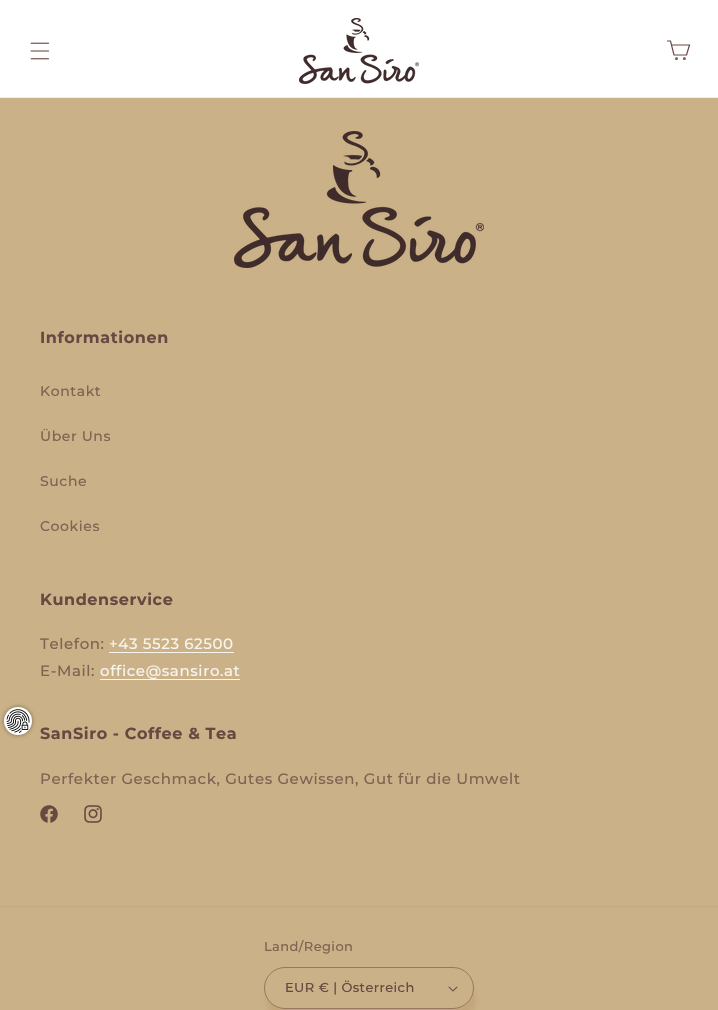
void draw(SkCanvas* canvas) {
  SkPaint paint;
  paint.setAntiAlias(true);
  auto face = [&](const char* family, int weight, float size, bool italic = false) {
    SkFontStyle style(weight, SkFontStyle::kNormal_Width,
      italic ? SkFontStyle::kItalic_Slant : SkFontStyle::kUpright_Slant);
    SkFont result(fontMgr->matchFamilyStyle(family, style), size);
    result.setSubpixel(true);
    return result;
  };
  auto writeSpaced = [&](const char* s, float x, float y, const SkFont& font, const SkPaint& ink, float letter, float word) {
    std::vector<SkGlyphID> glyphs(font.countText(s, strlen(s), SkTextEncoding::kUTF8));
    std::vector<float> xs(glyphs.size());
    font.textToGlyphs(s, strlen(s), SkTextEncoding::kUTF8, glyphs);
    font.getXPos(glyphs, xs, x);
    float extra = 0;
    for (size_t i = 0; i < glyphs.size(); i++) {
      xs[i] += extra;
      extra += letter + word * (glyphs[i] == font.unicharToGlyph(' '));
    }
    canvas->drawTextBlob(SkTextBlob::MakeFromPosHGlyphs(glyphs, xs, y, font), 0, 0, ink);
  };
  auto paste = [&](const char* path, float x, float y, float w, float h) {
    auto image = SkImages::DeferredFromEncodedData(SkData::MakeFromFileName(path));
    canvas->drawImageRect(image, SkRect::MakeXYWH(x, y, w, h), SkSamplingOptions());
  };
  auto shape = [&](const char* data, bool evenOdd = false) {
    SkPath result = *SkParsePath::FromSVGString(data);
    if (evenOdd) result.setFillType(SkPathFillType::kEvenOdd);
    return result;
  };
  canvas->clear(0xffcab187);
  paint.setColor(0xffffffff);
  canvas->drawRect(SkRect::MakeXYWH(0, 0, 718, 97), paint);
  paint.setColor(0xffeeecec);
  canvas->drawRect(SkRect::MakeXYWH(0, 97, 718, 1), paint);
  paste("img/1.png", 30, 42, 20, 18);
  paste("img/2.png", 299, 18, 120, 66);
  paint.setStroke(true);
  paint.setStrokeWidth(1.2f);
  paint.setColor(0xff694842);
  canvas->drawPath(shape("M671.5 45H689.5L686.5 55H674L670.5 41H667"), paint);
  canvas->drawCircle(676.5f, 58.7f, 0.8f, paint);
  canvas->drawCircle(684.4f, 58.7f, 0.8f, paint);
  paint.setStroke(false);
  paint.setColor(0x66000000);
  paint.setMaskFilter(SkMaskFilter::MakeBlur(kNormal_SkBlurStyle, 2));
  canvas->drawRoundRect(SkRect::MakeXYWH(4, 707, 28, 28), 14, 14, paint);
  paint.setMaskFilter(nullptr);
  paint.setColor(0xffffffff);
  canvas->drawCircle(18, 721, 14, paint);
  paste("img/3.png", 6, 709, 24, 24);
  paste("img/4.png", 234, 131, 250, 137);
  paint.setColor(0xfff7f3ed);
  canvas->drawRect(SkRect::MakeXYWH(109, 652, 125, 1), paint);
  canvas->drawRect(SkRect::MakeXYWH(100, 679, 140, 1), paint);
  paste("img/5.png", 40, 805, 18, 18);
  paste("img/6.png", 84, 805, 18, 18);
  paint.setColor(0xffc2a981);
  canvas->drawRect(SkRect::MakeXYWH(0, 906, 718, 1), paint);
  paint.setColor(0x1a8a3e1d);
  paint.setMaskFilter(SkMaskFilter::MakeBlur(kNormal_SkBlurStyle, 2.5f));
  canvas->drawRoundRect(SkRect::MakeXYWH(266, 979, 210, 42), 21, 21, paint);
  paint.setMaskFilter(nullptr);
  paint.setColor(0xffcab187);
  canvas->drawRoundRect(SkRect::MakeXYWH(264, 967, 210, 42), 21, 21, paint);
  paste("img/7.png", 448, 986, 10, 6);
  paint.setStroke(true);
  paint.setStrokeWidth(1);
  paint.setColor(0x8c694842);
  canvas->drawRoundRect(SkRect::MakeXYWH(264.5f, 967.5f, 209, 41), 20.5f, 20.5f, paint);
  auto f0 = face("Montserrat", 700, 16);
  paint.setStroke(false);
  paint.setColor(0xff694842);
  writeSpaced("Informationen", 40, 343, f0, paint, 0.6f, 0);
  auto f1 = face("Montserrat", 500, 14);
  paint.setColor(0xff816253);
  {
    const struct { const char* s; float x, y; } items[] = {
      {"Kontakt", 40, 396},
      {"Über Uns", 40, 441},
      {"Suche", 40, 486},
      {"Cookies", 40, 531},
    };
    for (auto [s, x, y] : items) {
      writeSpaced(s, x, y, f1, paint, 0.6f, 0);
    }
  }
  paint.setColor(0xff694842);
  writeSpaced("Kundenservice", 40, 605, f0, paint, 0.6f, 0);
  auto f2 = face("Montserrat", 500, 15);
  paint.setColor(0xff816253);
  writeSpaced("Telefon:", 40, 649, f2, paint, 0.6f, 0);
  paint.setColor(0xfff7f3ed);
  writeSpaced("+43 5523 62500", 109, 649, f2, paint, 0.6f, 0);
  paint.setColor(0xff816253);
  writeSpaced("E-Mail:", 40, 676, f2, paint, 0.6f, 0);
  paint.setColor(0xfff7f3ed);
  writeSpaced("office@sansiro.at", 100, 676, f2, paint, 0.6f, 0);
  paint.setColor(0xff694842);
  writeSpaced("SanSiro - Coffee & Tea", 40, 739, f0, paint, 0.6f, 0);
  paint.setColor(0xff816253);
  writeSpaced("Perfekter Geschmack, Gutes Gewissen, Gut für die Umwelt", 40, 784, f2, paint, 0.6f, 0);
  auto f3 = face("Montserrat", 500, 13);
  writeSpaced("Land/Region", 264, 951, f3, paint, 0.4f, 0);
  paint.setColor(0xff694842);
  writeSpaced("EUR € | Österreich", 285, 992, f3, paint, 0.4f, 0);
}
